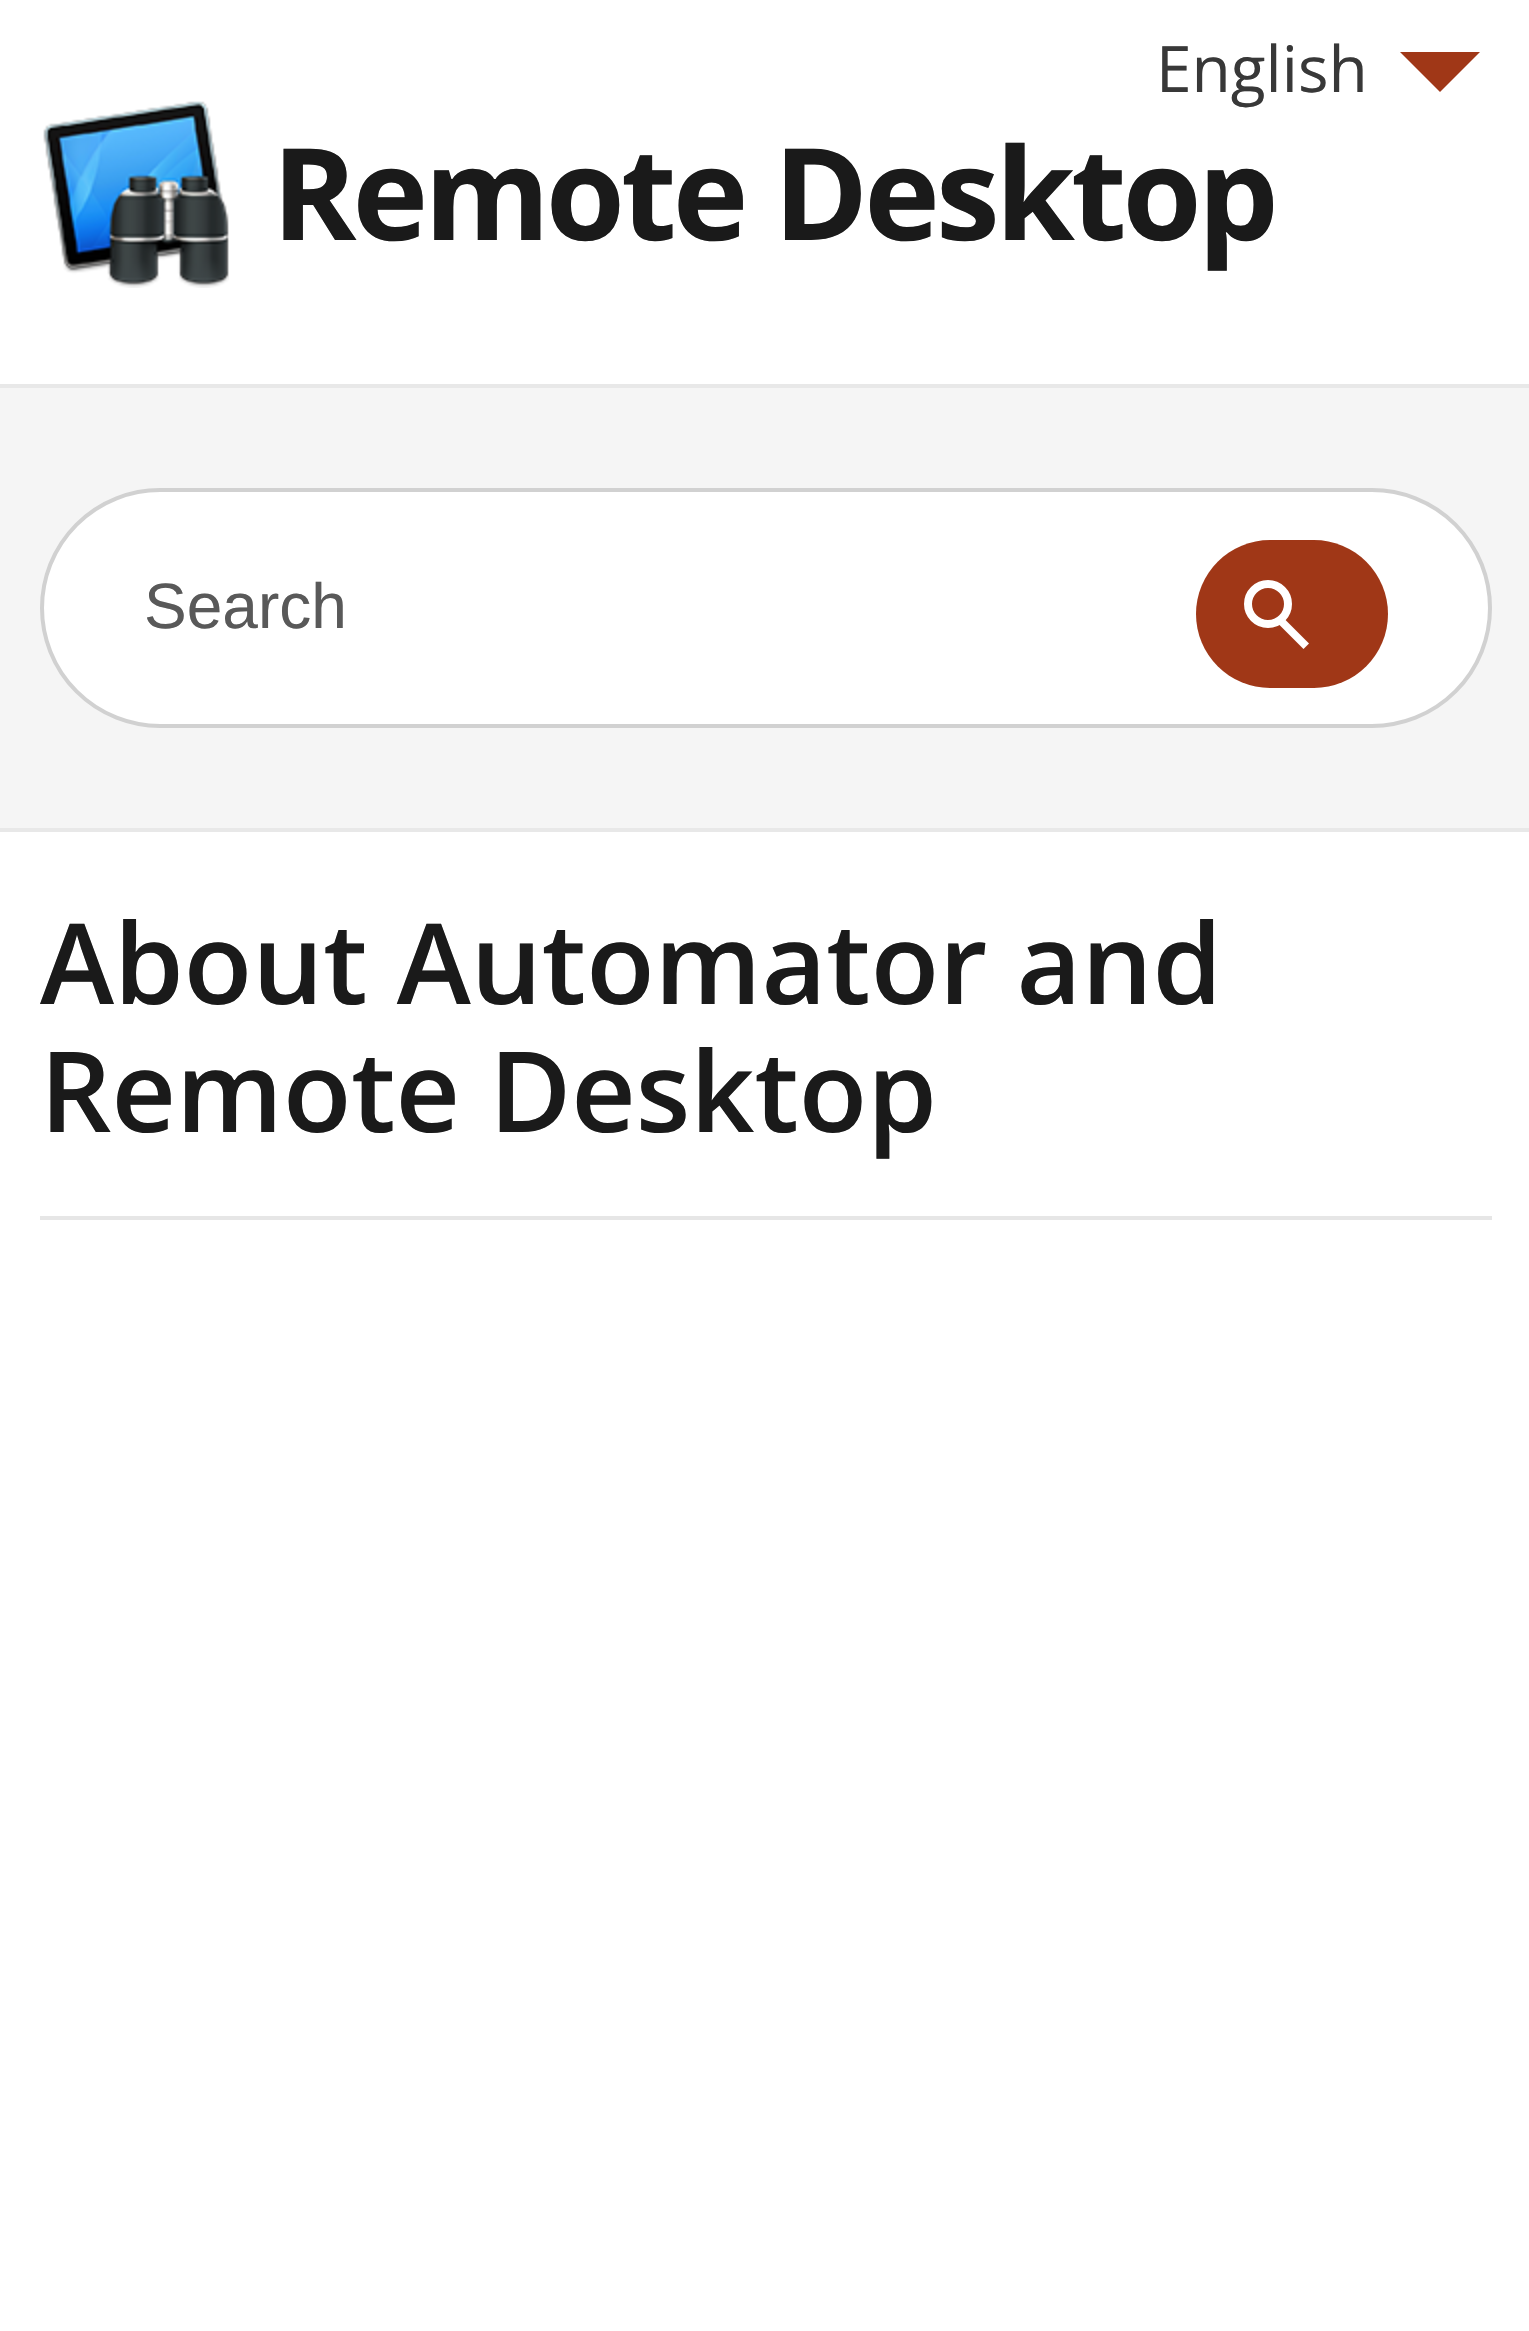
void draw(SkCanvas* canvas) {
  SkPaint paint;
  paint.setAntiAlias(true);
  auto face = [&](const char* family, int weight, float size, bool italic = false) {
    SkFontStyle style(weight, SkFontStyle::kNormal_Width,
      italic ? SkFontStyle::kItalic_Slant : SkFontStyle::kUpright_Slant);
    SkFont result(fontMgr->matchFamilyStyle(family, style), size);
    result.setSubpixel(true);
    return result;
  };
  auto writeSpaced = [&](const char* s, float x, float y, const SkFont& font, const SkPaint& ink, float letter, float word) {
    std::vector<SkGlyphID> glyphs(font.countText(s, strlen(s), SkTextEncoding::kUTF8));
    std::vector<float> xs(glyphs.size());
    font.textToGlyphs(s, strlen(s), SkTextEncoding::kUTF8, glyphs);
    font.getXPos(glyphs, xs, x);
    float extra = 0;
    for (size_t i = 0; i < glyphs.size(); i++) {
      xs[i] += extra;
      extra += letter + word * (glyphs[i] == font.unicharToGlyph(' '));
    }
    canvas->drawTextBlob(SkTextBlob::MakeFromPosHGlyphs(glyphs, xs, y, font), 0, 0, ink);
  };
  auto paste = [&](const char* path, float x, float y, float w, float h) {
    auto image = SkImages::DeferredFromEncodedData(SkData::MakeFromFileName(path));
    canvas->drawImageRect(image, SkRect::MakeXYWH(x, y, w, h), SkSamplingOptions());
  };
  auto shape = [&](const char* data, bool evenOdd = false) {
    SkPath result = *SkParsePath::FromSVGString(data);
    if (evenOdd) result.setFillType(SkPathFillType::kEvenOdd);
    return result;
  };
  canvas->clear(0xffffffff);
  paint.setColor(0xffa03717);
  canvas->drawPath(shape("M1400 52H1480L1440 92Z"), paint);
  paste("img/1.png", 43, 101, 186, 187);
  {
    const struct { float x, y, w, h; SkColor color; } items[] = {
      {0, 388, 1529, 440, 0xfff5f5f5},
      {0, 384, 1529, 4, 0xffe8e8e8},
      {0, 828, 1529, 4, 0xffe8e8e8},
    };
    for (auto [x, y, w, h, color] : items) {
      paint.setColor(color);
      canvas->drawRect(SkRect::MakeXYWH(x, y, w, h), paint);
    }
  }
  paint.setColor(0xffffffff);
  canvas->drawRoundRect(SkRect::MakeXYWH(42, 490, 1448, 236), 118, 118, paint);
  paint.setStroke(true);
  paint.setStrokeWidth(4);
  paint.setColor(0xffd1d1d1);
  canvas->drawRoundRect(SkRect::MakeXYWH(42, 490, 1448, 236), 118, 118, paint);
  paint.setStroke(false);
  paint.setColor(0xffa03717);
  canvas->drawRoundRect(SkRect::MakeXYWH(1196, 540, 192, 148), 74, 74, paint);
  paint.setStroke(true);
  paint.setStrokeWidth(8);
  paint.setColor(0xffffffff);
  canvas->drawCircle(1268, 604, 20, paint);
  paint.setStroke(false);
  canvas->drawPath(shape("M1280.5 615L1309 643.5L1303.5 649L1275 620.5Z"), paint);
  paint.setColor(0xffe6e6e6);
  canvas->drawRect(SkRect::MakeXYWH(40, 1216, 1452, 4), paint);
  auto f0 = face("Open Sans", 400, 64);
  paint.setColor(0xff383838);
  canvas->drawString("English", 1156, 92, f0, paint);
  auto f1 = face("Open Sans", 700, 128);
  paint.setColor(0xff1a1a1a);
  writeSpaced("Remote Desktop", 272, 240, f1, paint, -4, 0);
  auto f2 = face("Liberation Sans", 400, 64);
  paint.setColor(0xff595959);
  canvas->drawString("Search", 144, 628, f2, paint);
  auto f3 = face("Open Sans", 600, 112);
  paint.setColor(0xff1a1a1a);
  canvas->drawString("About Automator and", 40, 1004, f3, paint);
  canvas->drawString("Remote Desktop", 40, 1132, f3, paint);
}
